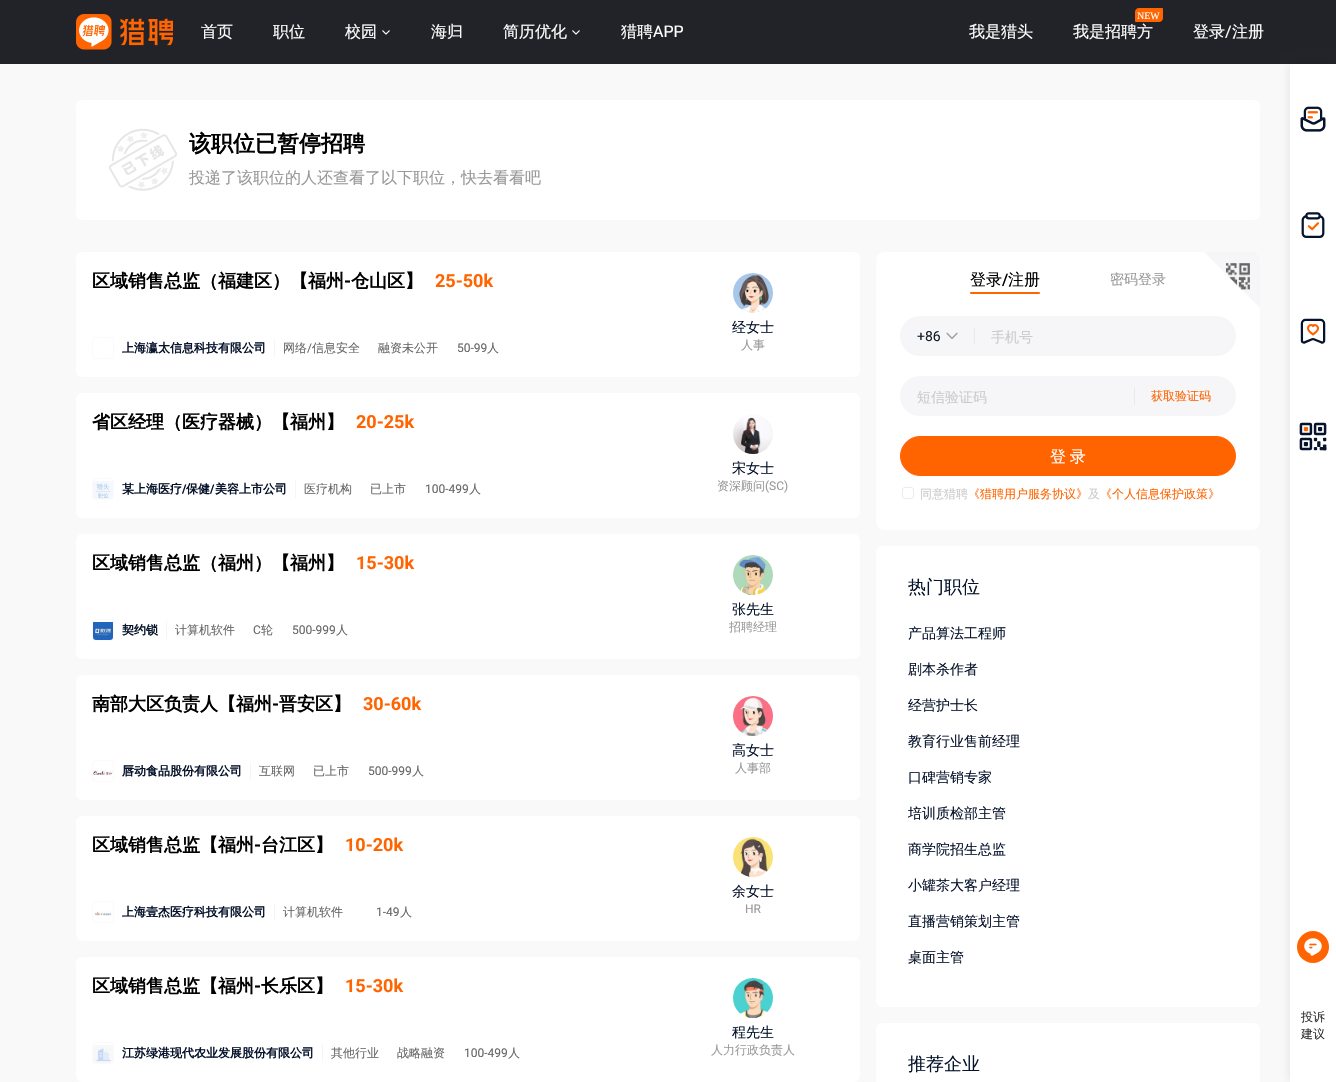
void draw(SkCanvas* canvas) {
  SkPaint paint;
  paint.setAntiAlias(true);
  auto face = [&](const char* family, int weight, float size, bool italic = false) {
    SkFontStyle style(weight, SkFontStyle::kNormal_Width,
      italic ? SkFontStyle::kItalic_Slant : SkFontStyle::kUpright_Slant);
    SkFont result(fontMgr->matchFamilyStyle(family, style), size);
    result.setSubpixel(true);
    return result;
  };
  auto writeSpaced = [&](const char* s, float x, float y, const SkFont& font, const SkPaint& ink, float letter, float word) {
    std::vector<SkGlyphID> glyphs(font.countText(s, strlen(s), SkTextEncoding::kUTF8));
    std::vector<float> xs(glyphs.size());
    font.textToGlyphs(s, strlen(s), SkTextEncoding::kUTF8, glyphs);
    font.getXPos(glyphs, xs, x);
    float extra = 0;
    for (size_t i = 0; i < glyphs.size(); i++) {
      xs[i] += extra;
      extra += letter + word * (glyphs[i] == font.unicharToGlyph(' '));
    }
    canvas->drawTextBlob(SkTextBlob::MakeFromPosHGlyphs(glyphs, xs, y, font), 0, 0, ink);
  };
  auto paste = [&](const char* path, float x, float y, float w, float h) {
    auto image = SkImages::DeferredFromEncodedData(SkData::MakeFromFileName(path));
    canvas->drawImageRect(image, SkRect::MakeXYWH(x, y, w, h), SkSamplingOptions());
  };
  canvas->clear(0xfffaf9f9);
  paint.setColor(0xff212329);
  canvas->drawRect(SkRect::MakeXYWH(0, 0, 1336, 64), paint);
  paste("img/1.png", 76, 14, 97, 36);
  paste("img/2.png", 382, 30, 8, 5);
  paste("img/2.png", 572, 30, 8, 5);
  paste("img/3.png", 1135, 8, 28, 14);
  paint.setColor(0xffffffff);
  canvas->drawRoundRect(SkRect::MakeXYWH(76, 100, 1184, 120), 6, 6, paint);
  paste("img/4.png", 109, 128, 68, 63);
  canvas->drawRoundRect(SkRect::MakeXYWH(76, 252, 784, 125), 6, 6, paint);
  paint.setStroke(true);
  paint.setStrokeWidth(1);
  paint.setColor(0xfffafafa);
  canvas->drawRoundRect(SkRect::MakeXYWH(92.5f, 337.5f, 21, 21), 3.5f, 3.5f, paint);
  paint.setStroke(false);
  paint.setColor(0xfff3f5f8);
  canvas->drawRect(SkRect::MakeXYWH(274, 339, 1, 18), paint);
  paste("img/5.png", 733, 273, 40, 40);
  paint.setColor(0xffffffff);
  canvas->drawRoundRect(SkRect::MakeXYWH(76, 393, 784, 125), 6, 6, paint);
  paint.setStroke(true);
  paint.setColor(0xfffafafa);
  canvas->drawRoundRect(SkRect::MakeXYWH(92.5f, 478.5f, 21, 21), 3.5f, 3.5f, paint);
  paste("img/6.png", 93, 481, 20, 18);
  paint.setStroke(false);
  paint.setColor(0xfff3f5f8);
  canvas->drawRect(SkRect::MakeXYWH(295, 480, 1, 18), paint);
  paste("img/7.png", 733, 414, 40, 40);
  paint.setColor(0xffffffff);
  canvas->drawRoundRect(SkRect::MakeXYWH(76, 534, 784, 125), 6, 6, paint);
  paint.setStroke(true);
  paint.setColor(0xfffafafa);
  canvas->drawRoundRect(SkRect::MakeXYWH(92.5f, 619.5f, 21, 21), 3.5f, 3.5f, paint);
  paste("img/8.png", 93, 622, 20, 18);
  paint.setStroke(false);
  paint.setColor(0xfff3f5f8);
  canvas->drawRect(SkRect::MakeXYWH(166, 621, 1, 18), paint);
  paste("img/9.png", 733, 555, 40, 40);
  paint.setColor(0xffffffff);
  canvas->drawRoundRect(SkRect::MakeXYWH(76, 675, 784, 125), 6, 6, paint);
  paint.setStroke(true);
  paint.setColor(0xfffafafa);
  canvas->drawRoundRect(SkRect::MakeXYWH(92.5f, 760.5f, 21, 21), 3.5f, 3.5f, paint);
  paste("img/10.png", 93, 770, 20, 5);
  paint.setStroke(false);
  paint.setColor(0xfff3f5f8);
  canvas->drawRect(SkRect::MakeXYWH(250, 762, 1, 18), paint);
  paste("img/11.png", 733, 696, 40, 40);
  paint.setColor(0xffffffff);
  canvas->drawRoundRect(SkRect::MakeXYWH(76, 816, 784, 125), 6, 6, paint);
  paint.setStroke(true);
  paint.setColor(0xfffafafa);
  canvas->drawRoundRect(SkRect::MakeXYWH(92.5f, 901.5f, 21, 21), 3.5f, 3.5f, paint);
  paste("img/12.png", 94, 911, 18, 5);
  paint.setStroke(false);
  paint.setColor(0xfff3f5f8);
  canvas->drawRect(SkRect::MakeXYWH(274, 903, 1, 18), paint);
  paste("img/13.png", 733, 837, 40, 40);
  paint.setColor(0xffffffff);
  canvas->drawRoundRect(SkRect::MakeXYWH(76, 957, 784, 125), 6, 6, paint);
  paint.setStroke(true);
  paint.setColor(0xfffafafa);
  canvas->drawRoundRect(SkRect::MakeXYWH(92.5f, 1042.5f, 21, 21), 3.5f, 3.5f, paint);
  paste("img/14.png", 93, 1045, 20, 18);
  paint.setStroke(false);
  paint.setColor(0xfff3f5f8);
  canvas->drawRect(SkRect::MakeXYWH(322, 1044, 1, 18), paint);
  paste("img/15.png", 733, 978, 40, 40);
  paint.setColor(0xffffffff);
  canvas->drawRoundRect(SkRect::MakeXYWH(876, 252, 384, 278), 8, 8, paint);
  paint.setColor(0xffff6400);
  canvas->drawRoundRect(SkRect::MakeXYWH(970, 292, 70, 2), 1, 1, paint);
  paste("img/16.png", 1205, 252, 55, 56);
  paint.setColor(0xfff6f6f8);
  canvas->drawRoundRect(SkRect::MakeXYWH(900, 316, 336, 40), 20, 20, paint);
  paste("img/17.png", 946, 332, 12, 7);
  paint.setColor(0xffe9e9eb);
  canvas->drawRect(SkRect::MakeXYWH(974, 328, 1, 16), paint);
  paint.setColor(0xfff6f6f8);
  canvas->drawRoundRect(SkRect::MakeXYWH(900, 376, 336, 40), 20, 20, paint);
  paint.setColor(0xffe9e9eb);
  canvas->drawRect(SkRect::MakeXYWH(1134, 388, 1, 17), paint);
  paint.setColor(0xffff6400);
  canvas->drawRoundRect(SkRect::MakeXYWH(900.5f, 436.5f, 335, 39), 19.5f, 19.5f, paint);
  paint.setStroke(true);
  canvas->drawRoundRect(SkRect::MakeXYWH(900.5f, 436.5f, 335, 39), 19.5f, 19.5f, paint);
  paint.setStrokeWidth(0.8f);
  paint.setColor(0xffe6e6e6);
  canvas->drawRoundRect(SkRect::MakeXYWH(902.4f, 487.4f, 11.2f, 11.2f), 2.6f, 2.6f, paint);
  paint.setStroke(false);
  paint.setColor(0xffffffff);
  canvas->drawRoundRect(SkRect::MakeXYWH(876, 546, 384, 461), 6, 6, paint);
  canvas->drawRoundRect(SkRect::MakeXYWH(876, 1023, 384, 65), 6, 6, paint);
  paint.setColor(0x1a07132b);
  paint.setMaskFilter(SkMaskFilter::MakeBlur(kNormal_SkBlurStyle, 5));
  canvas->drawRect(SkRect::MakeXYWH(1290, 64, 46, 1018), paint);
  paint.setMaskFilter(nullptr);
  paint.setColor(0xffffffff);
  canvas->drawRect(SkRect::MakeXYWH(1290, 64, 46, 1018), paint);
  paste("img/18.png", 1300, 106, 26, 26);
  paste("img/19.png", 1301, 212, 24, 26);
  paste("img/20.png", 1300, 318, 26, 26);
  paste("img/21.png", 1299, 422, 28, 29);
  paint.setColor(0xffff6400);
  canvas->drawCircle(1313, 947, 16, paint);
  paste("img/22.png", 1304, 938, 18, 18);
  auto f0 = face("WenQuanYi Zen Hei", 500, 16);
  paint.setColor(0xffffffff);
  {
    const struct { const char* s; float x, y; } items[] = {
      {"首页", 201, 37},
      {"职位", 273, 37},
      {"校园", 345, 37},
      {"海归", 431, 37},
      {"简历优化", 503, 37},
      {"猎聘", 621, 37},
    };
    for (auto [s, x, y] : items) {
      canvas->drawString(s, x, y, f0, paint);
    }
  }
  auto f1 = face("Roboto", 400, 16);
  canvas->drawString("APP", 653, 37, f1, paint);
  canvas->drawString("我是猎头", 969, 37, f0, paint);
  auto f2 = face("Liberation Serif", 400, 10);
  canvas->drawString("NEW", 1137, 19, f2, paint);
  canvas->drawString("我是招聘方", 1073, 37, f0, paint);
  canvas->drawString("登录", 1193, 37, f0, paint);
  canvas->drawString("/", 1225, 37, f1, paint);
  canvas->drawString("注册", 1232, 37, f0, paint);
  auto f3 = face("WenQuanYi Zen Hei", 700, 22);
  paint.setColor(0xff000000);
  canvas->drawString("该职位已暂停招聘", 189, 151, f3, paint);
  paint.setColor(0xff999999);
  canvas->drawString("投递了该职位的人还查看了以下职位，快去看看吧", 189, 183, f0, paint);
  auto f4 = face("WenQuanYi Zen Hei", 700, 18);
  paint.setColor(0xff000000);
  canvas->drawString("区域销售总监（福建区）", 92, 287, f4, paint);
  canvas->drawString("【福州", 290, 287, f4, paint);
  auto f5 = face("Roboto", 700, 18);
  canvas->drawString("-", 344, 287, f5, paint);
  canvas->drawString("仓山区", 351, 287, f4, paint);
  canvas->drawString("】", 405, 287, f4, paint);
  paint.setColor(0xffff6400);
  canvas->drawString("25-50k", 435, 287, f5, paint);
  auto f6 = face("WenQuanYi Zen Hei", 700, 12);
  paint.setColor(0xff07132b);
  canvas->drawString("上海瀛太信息科技有限公司", 122, 352, f6, paint);
  auto f7 = face("WenQuanYi Zen Hei", 500, 12);
  paint.setColor(0xff666666);
  canvas->drawString("网络", 283, 352, f7, paint);
  auto f8 = face("Roboto", 400, 12);
  canvas->drawString("/", 307, 352, f8, paint);
  canvas->drawString("信息安全", 312, 352, f7, paint);
  canvas->drawString("融资未公开", 378, 352, f7, paint);
  canvas->drawString("50-99", 457, 352, f8, paint);
  canvas->drawString("人", 487, 352, f7, paint);
  auto f9 = face("WenQuanYi Zen Hei", 500, 14);
  paint.setColor(0xff07132b);
  canvas->drawString("经女士", 732, 332, f9, paint);
  paint.setColor(0xff999999);
  canvas->drawString("人事", 741, 349, f7, paint);
  paint.setColor(0xff000000);
  {
    const struct { const char* s; float x, y; } items[] = {
      {"省区经理（医疗器械）", 92, 428},
      {"【福州", 272, 428},
      {"】", 326, 428},
    };
    for (auto [s, x, y] : items) {
      canvas->drawString(s, x, y, f4, paint);
    }
  }
  paint.setColor(0xffff6400);
  canvas->drawString("20-25k", 356, 428, f5, paint);
  paint.setColor(0xff07132b);
  canvas->drawString("某上海医疗", 122, 493, f6, paint);
  auto f10 = face("Roboto", 700, 12);
  canvas->drawString("/", 182, 493, f10, paint);
  canvas->drawString("保健", 186, 493, f6, paint);
  canvas->drawString("/", 210, 493, f10, paint);
  canvas->drawString("美容上市公司", 215, 493, f6, paint);
  paint.setColor(0xff666666);
  canvas->drawString("医疗机构", 304, 493, f7, paint);
  canvas->drawString("已上市", 370, 493, f7, paint);
  canvas->drawString("100-499", 425, 493, f8, paint);
  canvas->drawString("人", 469, 493, f7, paint);
  paint.setColor(0xff07132b);
  canvas->drawString("宋女士", 732, 473, f9, paint);
  paint.setColor(0xff999999);
  canvas->drawString("资深顾问", 717, 490, f7, paint);
  canvas->drawString("(SC)", 765, 490, f8, paint);
  paint.setColor(0xff000000);
  {
    const struct { const char* s; float x, y; } items[] = {
      {"区域销售总监（福州）", 92, 569},
      {"【福州", 272, 569},
      {"】", 326, 569},
    };
    for (auto [s, x, y] : items) {
      canvas->drawString(s, x, y, f4, paint);
    }
  }
  paint.setColor(0xffff6400);
  canvas->drawString("15-30k", 356, 569, f5, paint);
  paint.setColor(0xff07132b);
  canvas->drawString("契约锁", 122, 634, f6, paint);
  paint.setColor(0xff666666);
  canvas->drawString("计算机软件", 175, 634, f7, paint);
  canvas->drawString("C", 253, 634, f8, paint);
  canvas->drawString("轮", 261, 634, f7, paint);
  canvas->drawString("500-999", 292, 634, f8, paint);
  canvas->drawString("人", 336, 634, f7, paint);
  paint.setColor(0xff07132b);
  canvas->drawString("张先生", 732, 614, f9, paint);
  paint.setColor(0xff999999);
  canvas->drawString("招聘经理", 729, 631, f7, paint);
  paint.setColor(0xff000000);
  canvas->drawString("南部大区负责人", 92, 710, f4, paint);
  canvas->drawString("【福州", 218, 710, f4, paint);
  canvas->drawString("-", 272, 710, f5, paint);
  canvas->drawString("晋安区", 279, 710, f4, paint);
  canvas->drawString("】", 333, 710, f4, paint);
  paint.setColor(0xffff6400);
  canvas->drawString("30-60k", 363, 710, f5, paint);
  paint.setColor(0xff07132b);
  canvas->drawString("唇动食品股份有限公司", 122, 775, f6, paint);
  paint.setColor(0xff666666);
  canvas->drawString("互联网", 259, 775, f7, paint);
  canvas->drawString("已上市", 313, 775, f7, paint);
  canvas->drawString("500-999", 368, 775, f8, paint);
  canvas->drawString("人", 412, 775, f7, paint);
  paint.setColor(0xff07132b);
  canvas->drawString("高女士", 732, 755, f9, paint);
  paint.setColor(0xff999999);
  canvas->drawString("人事部", 735, 772, f7, paint);
  paint.setColor(0xff000000);
  canvas->drawString("区域销售总监", 92, 851, f4, paint);
  canvas->drawString("【福州", 200, 851, f4, paint);
  canvas->drawString("-", 254, 851, f5, paint);
  canvas->drawString("台江区", 261, 851, f4, paint);
  canvas->drawString("】", 315, 851, f4, paint);
  paint.setColor(0xffff6400);
  canvas->drawString("10-20k", 345, 851, f5, paint);
  paint.setColor(0xff07132b);
  canvas->drawString("上海壹杰医疗科技有限公司", 122, 916, f6, paint);
  paint.setColor(0xff666666);
  canvas->drawString("计算机软件", 283, 916, f7, paint);
  canvas->drawString("1-49", 376, 916, f8, paint);
  canvas->drawString("人", 400, 916, f7, paint);
  paint.setColor(0xff07132b);
  canvas->drawString("余女士", 732, 896, f9, paint);
  paint.setColor(0xff999999);
  canvas->drawString("HR", 745, 913, f8, paint);
  paint.setColor(0xff000000);
  canvas->drawString("区域销售总监", 92, 992, f4, paint);
  canvas->drawString("【福州", 200, 992, f4, paint);
  canvas->drawString("-", 254, 992, f5, paint);
  canvas->drawString("长乐区", 261, 992, f4, paint);
  canvas->drawString("】", 315, 992, f4, paint);
  paint.setColor(0xffff6400);
  canvas->drawString("15-30k", 345, 992, f5, paint);
  paint.setColor(0xff07132b);
  canvas->drawString("江苏绿港现代农业发展股份有限公司", 122, 1057, f6, paint);
  paint.setColor(0xff666666);
  canvas->drawString("其他行业", 331, 1057, f7, paint);
  canvas->drawString("战略融资", 397, 1057, f7, paint);
  canvas->drawString("100-499", 464, 1057, f8, paint);
  canvas->drawString("人", 508, 1057, f7, paint);
  paint.setColor(0xff07132b);
  canvas->drawString("程先生", 732, 1037, f9, paint);
  paint.setColor(0xff999999);
  canvas->drawString("人力行政负责人", 711, 1054, f7, paint);
  paint.setColor(0xff000000);
  canvas->drawString("登录", 970, 285, f0, paint);
  auto f11 = face("Roboto", 500, 16);
  canvas->drawString("/", 1002, 285, f11, paint);
  canvas->drawString("注册", 1008, 285, f0, paint);
  paint.setColor(0xff999999);
  canvas->drawString("密码登录", 1110, 284, f9, paint);
  auto f12 = face("Roboto", 400, 14);
  paint.setColor(0xff121e29);
  canvas->drawString("+86", 917, 341, f12, paint);
  paint.setColor(0xffcccccc);
  canvas->drawString("手机号", 991, 342, f9, paint);
  canvas->drawString("短信验证码", 917, 402, f9, paint);
  paint.setColor(0xffff6400);
  canvas->drawString("获取验证码", 1151, 400, f7, paint);
  paint.setColor(0xffffffff);
  writeSpaced("登 录", 1050, 462, f0, paint, 0, -1);
  paint.setColor(0xffcccccc);
  canvas->drawString("同意猎聘", 920, 498, f7, paint);
  paint.setColor(0xffff6400);
  canvas->drawString("《猎聘用户服务协议》", 968, 498, f7, paint);
  paint.setColor(0xffcccccc);
  canvas->drawString("及", 1088, 498, f7, paint);
  paint.setColor(0xffff6400);
  canvas->drawString("《个人信息保护政策》", 1100, 498, f7, paint);
  auto f13 = face("WenQuanYi Zen Hei", 500, 18);
  paint.setColor(0xff07132b);
  canvas->drawString("热门职位", 908, 593, f13, paint);
  {
    const struct { const char* s; float x, y; } items[] = {
      {"产品算法工程师", 908, 638},
      {"剧本杀作者", 908, 674},
      {"经营护士长", 908, 710},
      {"教育行业售前经理", 908, 746},
      {"口碑营销专家", 908, 782},
      {"培训质检部主管", 908, 818},
      {"商学院招生总监", 908, 854},
      {"小罐茶大客户经理", 908, 890},
      {"直播营销策划主管", 908, 926},
      {"桌面主管", 908, 962},
    };
    for (auto [s, x, y] : items) {
      canvas->drawString(s, x, y, f9, paint);
    }
  }
  canvas->drawString("推荐企业", 908, 1070, f13, paint);
  paint.setColor(0xff333333);
  canvas->drawString("投诉", 1301, 1021, f7, paint);
  canvas->drawString("建议", 1301, 1038, f7, paint);
}
